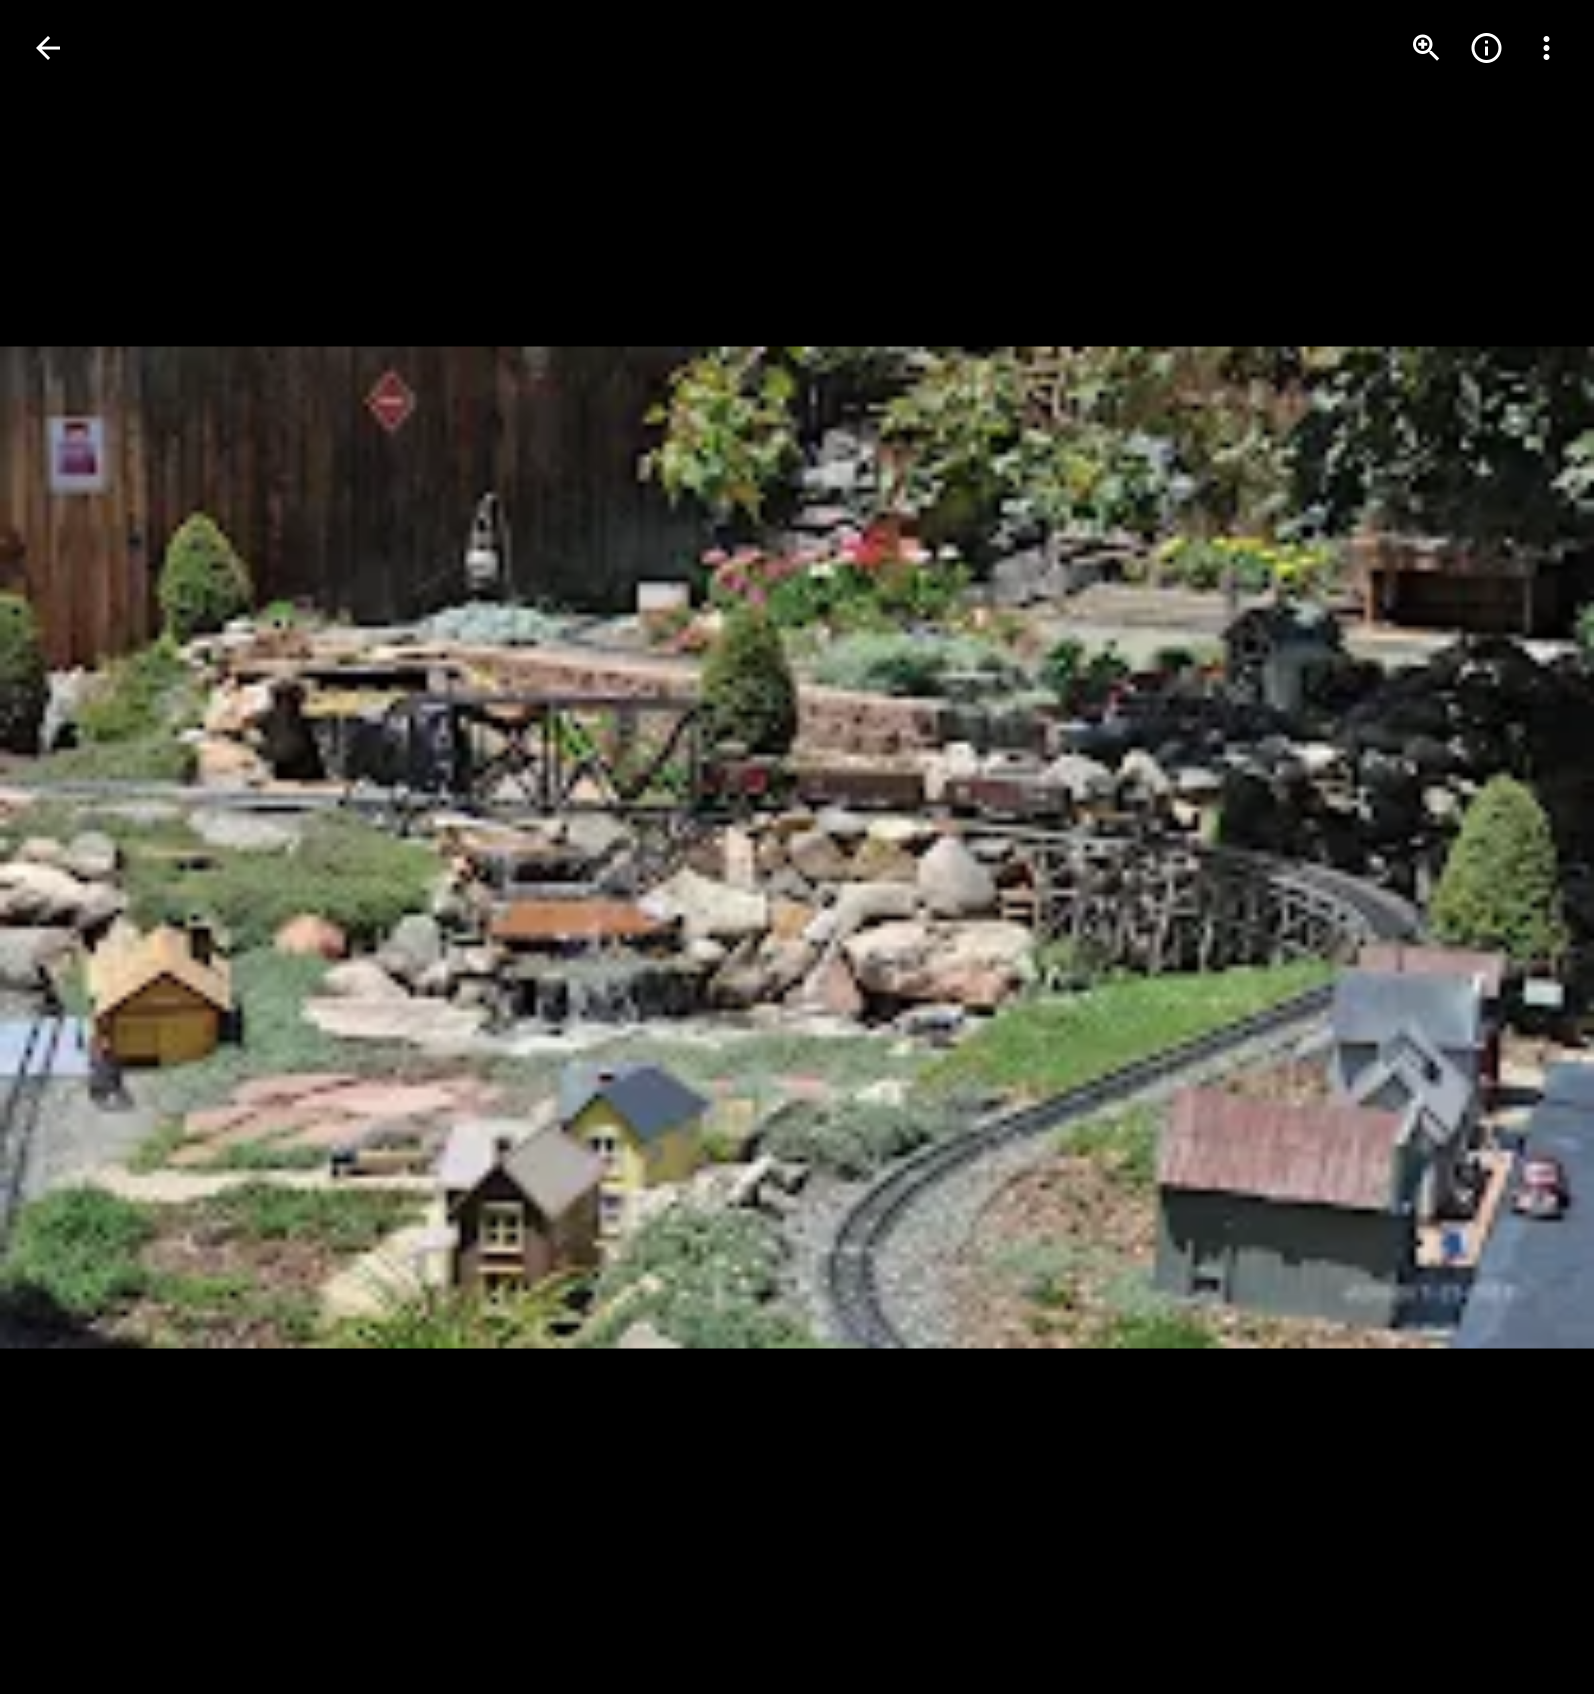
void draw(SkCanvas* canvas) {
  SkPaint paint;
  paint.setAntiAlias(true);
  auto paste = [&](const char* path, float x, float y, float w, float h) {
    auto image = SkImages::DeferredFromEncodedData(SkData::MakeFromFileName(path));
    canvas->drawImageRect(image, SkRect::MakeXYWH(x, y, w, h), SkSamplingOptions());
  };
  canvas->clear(0xff000000);
  paste("img/1.png", 36, 36, 24, 24);
  paste("img/2.png", 1413, 34, 27, 27);
  paste("img/3.png", 1471, 33, 31, 30);
  paste("img/4.png", 1543, 36, 7, 24);
  paste("img/5.png", 0, 346, 1594, 1003);
}
